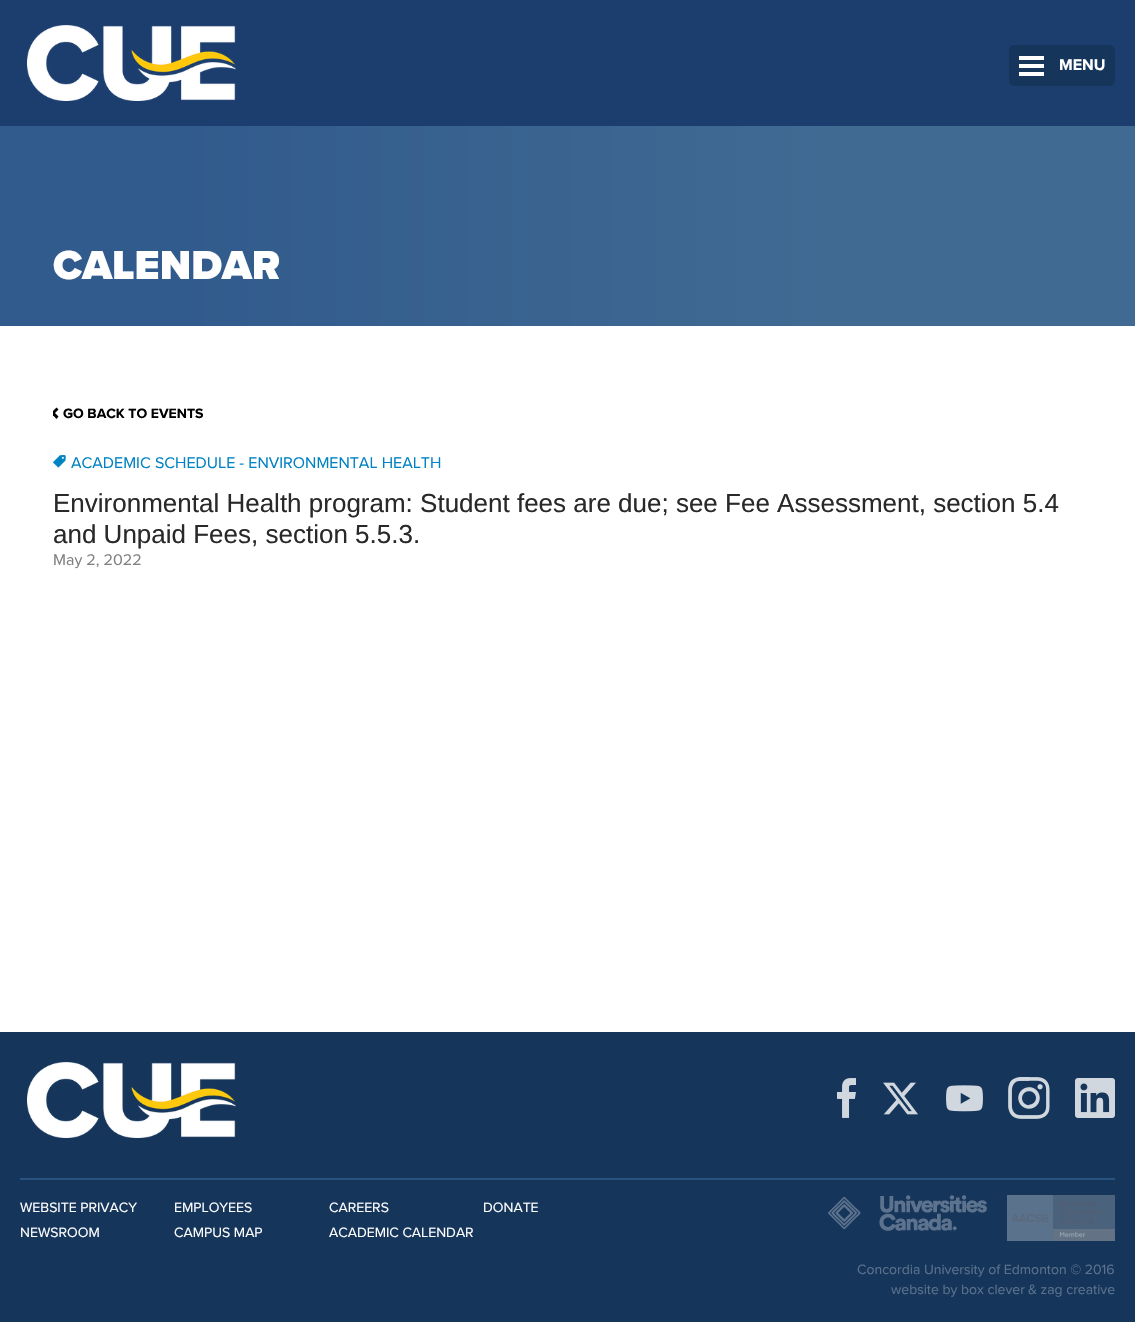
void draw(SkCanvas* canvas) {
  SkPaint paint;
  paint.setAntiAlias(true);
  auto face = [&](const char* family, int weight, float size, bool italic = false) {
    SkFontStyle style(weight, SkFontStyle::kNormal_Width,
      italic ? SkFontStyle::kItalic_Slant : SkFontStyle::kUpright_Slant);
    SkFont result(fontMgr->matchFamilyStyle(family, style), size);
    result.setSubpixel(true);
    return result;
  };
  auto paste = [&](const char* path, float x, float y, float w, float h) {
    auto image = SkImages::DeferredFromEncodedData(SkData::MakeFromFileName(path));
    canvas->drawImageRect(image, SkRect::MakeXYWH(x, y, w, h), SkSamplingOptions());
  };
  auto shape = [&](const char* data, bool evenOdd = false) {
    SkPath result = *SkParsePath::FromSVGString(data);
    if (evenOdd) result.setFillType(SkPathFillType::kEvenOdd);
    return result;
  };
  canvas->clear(0xffffffff);
  paint.setColor(0xff1b3e6f);
  canvas->drawRect(SkRect::MakeXYWH(0, 0, 1135, 126), paint);
  paste("img/1.png", 27, 25, 209, 76);
  paint.setColor(0xff15355b);
  canvas->drawRoundRect(SkRect::MakeXYWH(1009, 45, 106, 41), 5, 5, paint);
  {
    const struct { float x, y, w, h; SkColor color; } items[] = {
      {1019, 56, 25, 4, 0xffffffff},
      {1019, 72, 25, 4, 0xffffffff},
      {1019, 64, 25, 4, 0xffffffff},
    };
    for (auto [x, y, w, h, color] : items) {
      paint.setColor(color);
      canvas->drawRect(SkRect::MakeXYWH(x, y, w, h), paint);
    }
  }
  {
    const SkColor colors[] = {0xff315b8c, 0xff416a93};
    const float stops[] = {0.16f, 0.74f};
    const SkPoint ends[] = {{0, 226}, {1135, 226}};
    paint.setShader(SkGradientShader::MakeLinear(ends, colors, stops, 2, SkTileMode::kClamp));
    paint.setAlpha(255);
  }
  canvas->drawRect(SkRect::MakeXYWH(0, 126, 1135, 200), paint);
  canvas->save();
  canvas->clipRect(SkRect::MakeXYWH(53, 401, 1030, 199));
  paint.setShader(nullptr);
  paint.setColor(0xff000000);
  canvas->drawPath(shape("M51 413L56.5 407.5L58.5 409.5L53 415Z"), paint);
  canvas->drawPath(shape("M51 413L53 411L58.5 416.5L56.5 419Z"), paint);
  canvas->restore();
  paste("img/2.png", 53, 455, 13, 13);
  paint.setColor(0xff15355b);
  canvas->drawRect(SkRect::MakeXYWH(0, 1032, 1135, 290), paint);
  paste("img/3.png", 27, 1062, 209, 76);
  paste("img/4.png", 837, 1078, 19, 40);
  paste("img/5.png", 883, 1082, 35, 33);
  paste("img/6.png", 946, 1085, 37, 27);
  paste("img/7.png", 1008, 1077, 42, 42);
  paste("img/8.png", 1075, 1078, 40, 40);
  paint.setColor(0xff2a527e);
  canvas->drawRect(SkRect::MakeXYWH(20, 1178, 1095, 2), paint);
  paste("img/9.png", 828, 1195, 159, 36);
  paste("img/10.png", 1007, 1195, 108, 46);
  auto f0 = face("Proxima Nova", 700, 16);
  paint.setColor(0xffffffff);
  canvas->drawString("MENU", 1059, 70, f0, paint);
  auto f1 = face("Proxima Nova", 900, 42);
  canvas->drawString("CALENDAR", 53, 279, f1, paint);
  auto f2 = face("Proxima Nova", 700, 14);
  paint.setColor(0xff000000);
  canvas->drawString("GO BACK TO EVENTS", 63, 418, f2, paint);
  auto f3 = face("Proxima Nova", 400, 16);
  paint.setColor(0xff0083c3);
  canvas->drawString("ACADEMIC SCHEDULE - ENVIRONMENTAL HEALTH", 71, 468, f3, paint);
  auto f4 = face("Liberation Sans", 400, 26);
  paint.setColor(0xff292929);
  canvas->drawString("Environmental Health program: Student fees are due; see Fee Assessment, section 5.4", 53, 512, f4, paint);
  canvas->drawString("and Unpaid Fees, section 5.5.3.", 53, 543, f4, paint);
  paint.setColor(0xff808080);
  canvas->drawString("May 2, 2022", 53, 565, f3, paint);
  auto f5 = face("Proxima Nova", 400, 14);
  paint.setColor(0xffffffff);
  {
    const struct { const char* s; float x, y; } items[] = {
      {"WEBSITE PRIVACY", 20, 1212},
      {"EMPLOYEES", 174, 1212},
      {"CAREERS", 329, 1212},
      {"DONATE", 483, 1212},
      {"NEWSROOM", 20, 1237},
      {"CAMPUS MAP", 174, 1237},
      {"ACADEMIC CALENDAR", 329, 1237},
    };
    for (auto [s, x, y] : items) {
      canvas->drawString(s, x, y, f5, paint);
    }
  }
  paint.setColor(0xff5b728c);
  {
    const struct { const char* s; float x, y; } items[] = {
      {"Concordia University of Edmonton © 2016", 857, 1274},
      {"website by box clever", 891, 1294},
      {"& zag creative", 1028, 1294},
    };
    for (auto [s, x, y] : items) {
      canvas->drawString(s, x, y, f5, paint);
    }
  }
}
